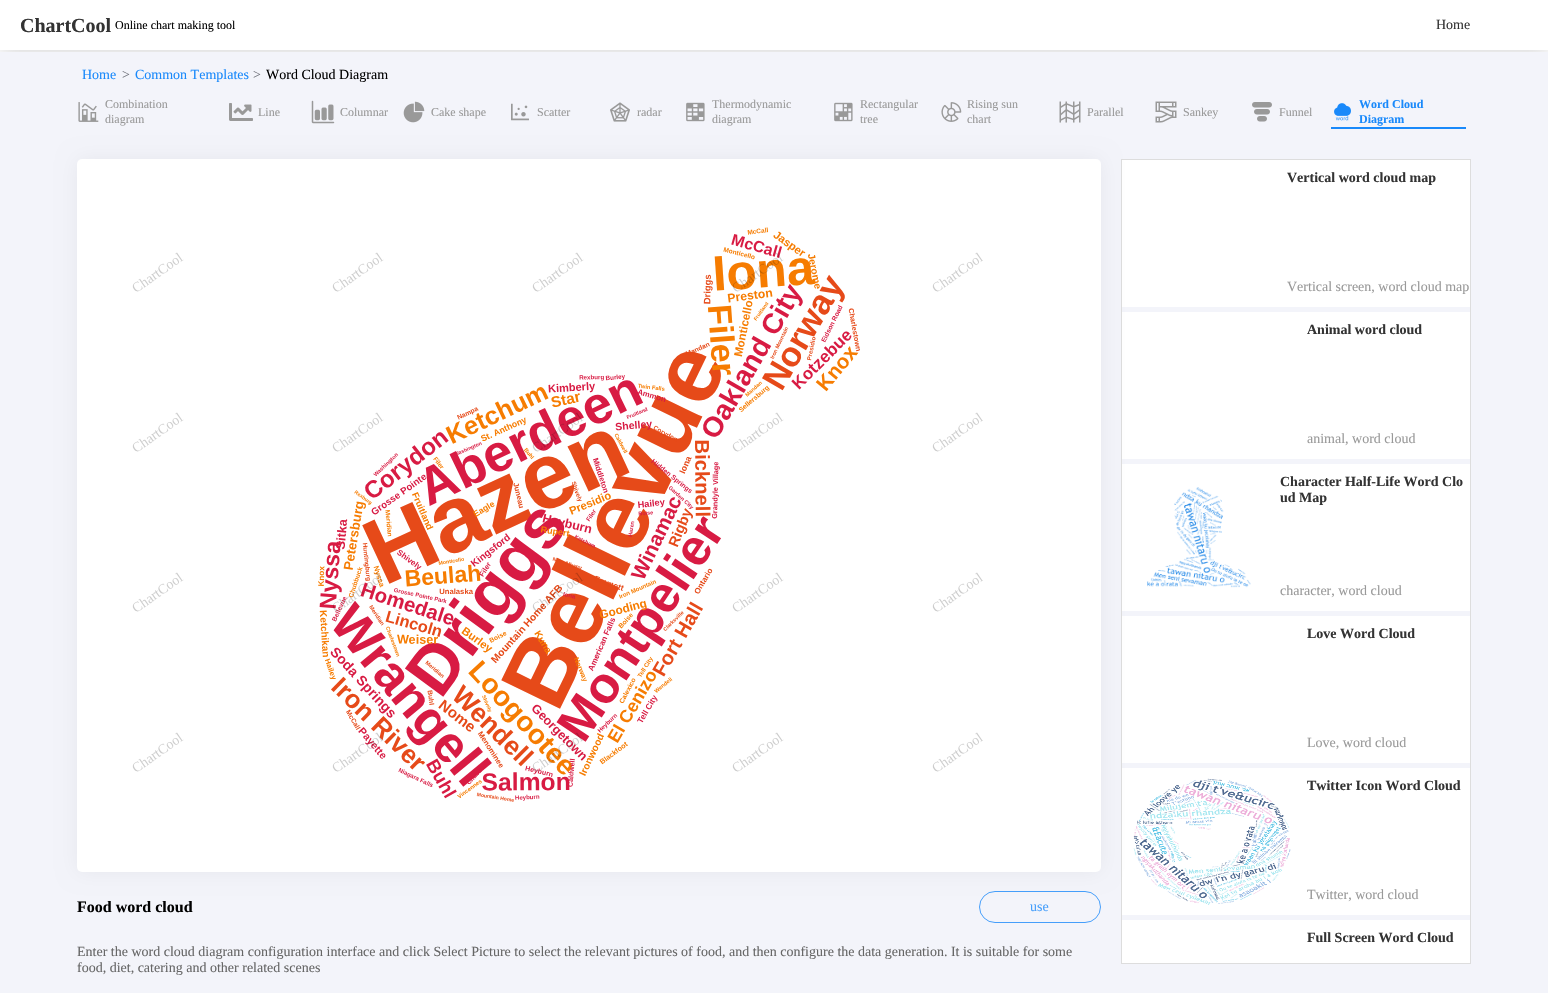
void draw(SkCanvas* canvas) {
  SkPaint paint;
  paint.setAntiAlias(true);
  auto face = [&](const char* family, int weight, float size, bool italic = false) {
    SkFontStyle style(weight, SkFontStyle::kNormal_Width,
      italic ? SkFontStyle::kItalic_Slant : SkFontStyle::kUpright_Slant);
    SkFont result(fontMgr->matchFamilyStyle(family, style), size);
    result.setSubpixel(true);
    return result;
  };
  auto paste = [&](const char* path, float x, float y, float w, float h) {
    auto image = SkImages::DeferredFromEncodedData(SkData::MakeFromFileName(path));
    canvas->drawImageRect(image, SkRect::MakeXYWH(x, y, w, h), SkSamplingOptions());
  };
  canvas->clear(0xffffffff);
  canvas->save();
  canvas->clipRect(SkRect::MakeXYWH(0, 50, 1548, 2));
  paint.setColor(0x33000000);
  paint.setMaskFilter(SkMaskFilter::MakeBlur(kNormal_SkBlurStyle, 10));
  canvas->drawRect(SkRect::MakeXYWH(0, 0, 1548, 50), paint);
  paint.setMaskFilter(nullptr);
  canvas->restore();
  paint.setColor(0xfff3f4fa);
  canvas->drawRect(SkRect::MakeXYWH(0, 52, 1548, 941), paint);
  paste("img/1.png", 78, 102, 21, 20);
  paste("img/2.png", 229, 103, 24, 18);
  paste("img/3.png", 311, 100, 24, 24);
  paste("img/4.png", 403, 101, 22, 22);
  paste("img/5.png", 511, 103, 18, 18);
  paste("img/6.png", 610, 102, 20, 20);
  paste("img/7.png", 686, 102, 19, 20);
  paste("img/8.png", 834, 102, 19, 20);
  paste("img/9.png", 941, 102, 21, 20);
  paste("img/10.png", 1059, 101, 22, 22);
  paste("img/11.png", 1155, 101, 22, 22);
  paste("img/12.png", 1252, 102, 20, 20);
  paint.setColor(0xff1989fa);
  canvas->drawRect(SkRect::MakeXYWH(1331, 127, 135, 2), paint);
  paste("img/13.png", 1334, 103, 17, 18);
  paint.setStroke(true);
  paint.setStrokeWidth(1);
  paint.setColor(0xffdddddd);
  canvas->drawRect(SkRect::MakeXYWH(1121.5f, 159.5f, 349, 804), paint);
  paint.setStroke(false);
  {
    const struct { float x, y, w, h; SkColor color; } items[] = {
      {1122, 160, 348, 147, 0xffffffff},
      {1122, 312, 348, 147, 0xffffffff},
      {1122, 464, 348, 147, 0xffffffff},
      {1122, 616, 348, 147, 0xffffffff},
      {1122, 768, 348, 147, 0xffffffff},
    };
    for (auto [x, y, w, h, color] : items) {
      paint.setColor(color);
      canvas->drawRect(SkRect::MakeXYWH(x, y, w, h), paint);
    }
  }
  paint.setColor(0x0d000000);
  paint.setMaskFilter(SkMaskFilter::MakeBlur(kNormal_SkBlurStyle, 10));
  canvas->drawRoundRect(SkRect::MakeXYWH(77, 159, 1024, 713), 5, 5, paint);
  paint.setMaskFilter(nullptr);
  paint.setColor(0xffffffff);
  canvas->drawRoundRect(SkRect::MakeXYWH(77, 159, 1024, 713), 5, 5, paint);
  paste("img/14.png", 318, 227, 542, 575);
  paste("img/15.png", 132, 252, 851, 520);
  paint.setStroke(true);
  paint.setColor(0xff459efa);
  canvas->drawRoundRect(SkRect::MakeXYWH(979.5f, 891.5f, 121, 31), 15.5f, 15.5f, paint);
  paste("img/16.png", 1147, 487, 104, 101);
  paste("img/17.png", 1133, 778, 158, 127);
  paint.setStroke(false);
  paint.setColor(0xffffffff);
  canvas->drawRect(SkRect::MakeXYWH(1122, 920, 348, 43), paint);
  auto f0 = face("Liberation Serif", 700, 20);
  paint.setColor(0xff333333);
  canvas->drawString("ChartCool", 20, 32, f0, paint);
  auto f1 = face("Liberation Serif", 400, 12);
  paint.setColor(0xff000000);
  canvas->drawString("Online chart making tool", 115, 29, f1, paint);
  auto f2 = face("Liberation Serif", 400, 14);
  paint.setColor(0xff333333);
  canvas->drawString("Home", 1436, 29, f2, paint);
  paint.setColor(0xff1989fa);
  canvas->drawString("Home", 82, 79, f2, paint);
  paint.setColor(0xff6e7079);
  canvas->drawString(">", 122, 79, f2, paint);
  paint.setColor(0xff1989fa);
  canvas->drawString("Common Templates", 135, 79, f2, paint);
  paint.setColor(0xff6e7079);
  canvas->drawString(">", 253, 79, f2, paint);
  paint.setColor(0xff000000);
  canvas->drawString("Word Cloud Diagram", 266, 79, f2, paint);
  paint.setColor(0xff999999);
  {
    const struct { const char* s; float x, y; } items[] = {
      {"Combination", 105, 108},
      {"diagram", 105, 123},
      {"Line", 258, 116},
      {"Columnar", 340, 116},
      {"Cake shape", 431, 116},
      {"Scatter", 537, 116},
      {"radar", 637, 116},
      {"Thermodynamic", 712, 108},
      {"diagram", 712, 123},
      {"Rectangular", 860, 108},
      {"tree", 860, 123},
      {"Rising sun", 967, 108},
      {"chart", 967, 123},
      {"Parallel", 1087, 116},
      {"Sankey", 1183, 116},
      {"Funnel", 1279, 116},
    };
    for (auto [s, x, y] : items) {
      canvas->drawString(s, x, y, f1, paint);
    }
  }
  auto f3 = face("Liberation Serif", 700, 12);
  paint.setColor(0xff1989fa);
  canvas->drawString("Word Cloud", 1359, 108, f3, paint);
  canvas->drawString("Diagram", 1359, 123, f3, paint);
  auto f4 = face("Liberation Serif", 700, 16);
  paint.setColor(0xff000000);
  canvas->drawString("Food word cloud", 77, 912, f4, paint);
  paint.setColor(0xff459efa);
  canvas->drawString("use", 1030, 911, f2, paint);
  paint.setColor(0xff666666);
  canvas->drawString("Enter the word cloud diagram configuration interface and click Select Picture to select the relevant pictures of food, and then configure the data generation. It is suitable for some", 77, 956, f2, paint);
  canvas->drawString("food, diet, catering and other related scenes", 77, 972, f2, paint);
  auto f5 = face("Liberation Serif", 700, 14);
  paint.setColor(0xff333333);
  canvas->drawString("Vertical word cloud map", 1287, 182, f5, paint);
  paint.setColor(0xff999999);
  canvas->drawString("Vertical screen, word cloud map", 1287, 291, f2, paint);
  paint.setColor(0xff333333);
  canvas->drawString("Animal word cloud", 1307, 334, f5, paint);
  paint.setColor(0xff999999);
  canvas->drawString("animal, word cloud", 1307, 443, f2, paint);
  paint.setColor(0xff333333);
  canvas->drawString("Character Half-Life Word Clo", 1280, 486, f5, paint);
  canvas->drawString("ud Map", 1280, 502, f5, paint);
  paint.setColor(0xff999999);
  canvas->drawString("character, word cloud", 1280, 595, f2, paint);
  paint.setColor(0xff333333);
  canvas->drawString("Love Word Cloud", 1307, 638, f5, paint);
  paint.setColor(0xff999999);
  canvas->drawString("Love, word cloud", 1307, 747, f2, paint);
  paint.setColor(0xff333333);
  canvas->drawString("Twitter Icon Word Cloud", 1307, 790, f5, paint);
  paint.setColor(0xff999999);
  canvas->drawString("Twitter, word cloud", 1307, 899, f2, paint);
  paint.setColor(0xff333333);
  canvas->drawString("Full Screen Word Cloud", 1307, 942, f5, paint);
}
